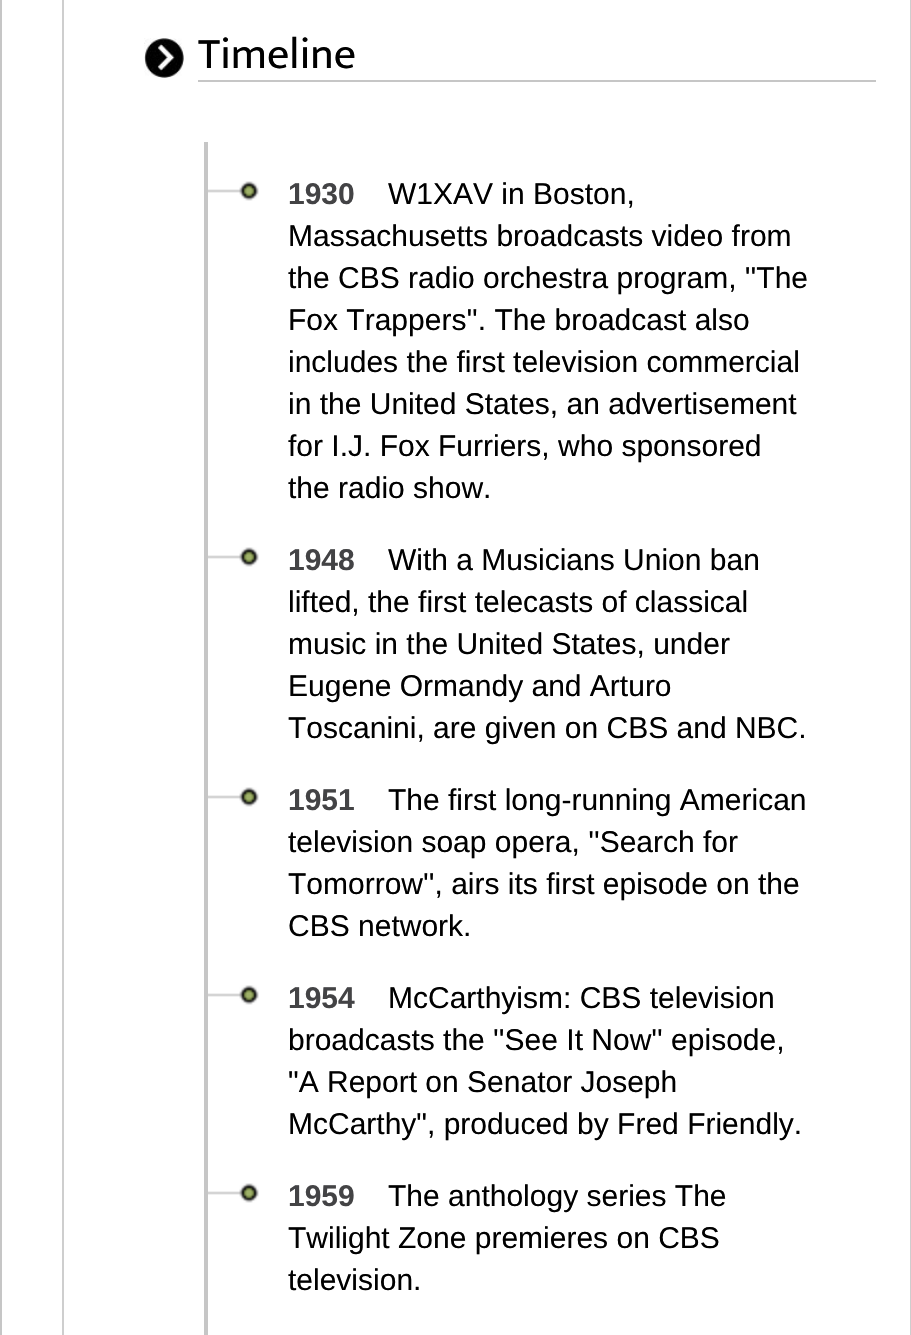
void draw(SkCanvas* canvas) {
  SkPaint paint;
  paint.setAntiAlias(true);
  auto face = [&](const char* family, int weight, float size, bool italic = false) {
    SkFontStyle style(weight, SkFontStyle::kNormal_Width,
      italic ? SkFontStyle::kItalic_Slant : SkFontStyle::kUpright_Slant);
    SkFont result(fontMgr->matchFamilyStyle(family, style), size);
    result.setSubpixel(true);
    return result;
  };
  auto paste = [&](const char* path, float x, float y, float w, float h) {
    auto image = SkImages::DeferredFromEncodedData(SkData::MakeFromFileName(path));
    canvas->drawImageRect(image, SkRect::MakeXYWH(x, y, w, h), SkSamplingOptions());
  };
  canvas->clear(0xffffffff);
  paint.setColor(0xffc6c6c6);
  canvas->drawRect(SkRect::MakeXYWH(0, 0, 2, 1335), paint);
  paint.setStroke(true);
  paint.setStrokeWidth(2);
  paint.setColor(0xffcecece);
  canvas->drawRect(SkRect::MakeXYWH(63, -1, 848, 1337), paint);
  paste("img/1.png", 144, 38, 40, 40);
  paint.setStroke(false);
  paint.setColor(0xffc6c6c6);
  canvas->drawRect(SkRect::MakeXYWH(198, 80, 678, 2), paint);
  canvas->drawRect(SkRect::MakeXYWH(204, 142, 4, 1193), paint);
  paste("img/2.png", 208, 181, 51, 20);
  paste("img/2.png", 208, 547, 51, 20);
  paste("img/2.png", 208, 787, 51, 20);
  paste("img/2.png", 208, 985, 51, 20);
  paste("img/2.png", 208, 1183, 51, 20);
  auto f0 = face("Mukta", 400, 44);
  paint.setColor(0xff000000);
  canvas->drawString("Timeline", 198, 68, f0, paint);
  auto f1 = face("Liberation Sans", 700, 30);
  paint.setColor(0xff434345);
  canvas->drawString("1930", 288, 204, f1, paint);
  auto f2 = face("Liberation Sans", 400, 30);
  paint.setColor(0xff000000);
  {
    const struct { const char* s; float x, y; } items[] = {
      {"W1XAV in Boston,", 388, 204},
      {"Massachusetts broadcasts video from", 288, 246},
      {"the CBS radio orchestra program, ''The", 288, 288},
      {"Fox Trappers''. The broadcast also", 288, 330},
      {"includes the first television commercial", 288, 372},
      {"in the United States, an advertisement", 288, 414},
      {"for I.J. Fox Furriers, who sponsored", 288, 456},
      {"the radio show.", 288, 498},
    };
    for (auto [s, x, y] : items) {
      canvas->drawString(s, x, y, f2, paint);
    }
  }
  paint.setColor(0xff434345);
  canvas->drawString("1948", 288, 570, f1, paint);
  paint.setColor(0xff000000);
  {
    const struct { const char* s; float x, y; } items[] = {
      {"With a Musicians Union ban", 388, 570},
      {"lifted, the first telecasts of classical", 288, 612},
      {"music in the United States, under", 288, 654},
      {"Eugene Ormandy and Arturo", 288, 696},
      {"Toscanini, are given on CBS and NBC.", 288, 738},
    };
    for (auto [s, x, y] : items) {
      canvas->drawString(s, x, y, f2, paint);
    }
  }
  paint.setColor(0xff434345);
  canvas->drawString("1951", 288, 810, f1, paint);
  paint.setColor(0xff000000);
  {
    const struct { const char* s; float x, y; } items[] = {
      {"The first long-running American", 388, 810},
      {"television soap opera, ''Search for", 288, 852},
      {"Tomorrow'', airs its first episode on the", 288, 894},
      {"CBS network.", 288, 936},
    };
    for (auto [s, x, y] : items) {
      canvas->drawString(s, x, y, f2, paint);
    }
  }
  paint.setColor(0xff434345);
  canvas->drawString("1954", 288, 1008, f1, paint);
  paint.setColor(0xff000000);
  {
    const struct { const char* s; float x, y; } items[] = {
      {"McCarthyism: CBS television", 388, 1008},
      {"broadcasts the ''See It Now'' episode,", 288, 1050},
      {"\"A Report on Senator Joseph", 288, 1092},
      {"McCarthy\", produced by Fred Friendly.", 288, 1134},
    };
    for (auto [s, x, y] : items) {
      canvas->drawString(s, x, y, f2, paint);
    }
  }
  paint.setColor(0xff434345);
  canvas->drawString("1959", 288, 1206, f1, paint);
  paint.setColor(0xff000000);
  {
    const struct { const char* s; float x, y; } items[] = {
      {"The anthology series The", 388, 1206},
      {"Twilight Zone premieres on CBS", 288, 1248},
      {"television.", 288, 1290},
    };
    for (auto [s, x, y] : items) {
      canvas->drawString(s, x, y, f2, paint);
    }
  }
}
